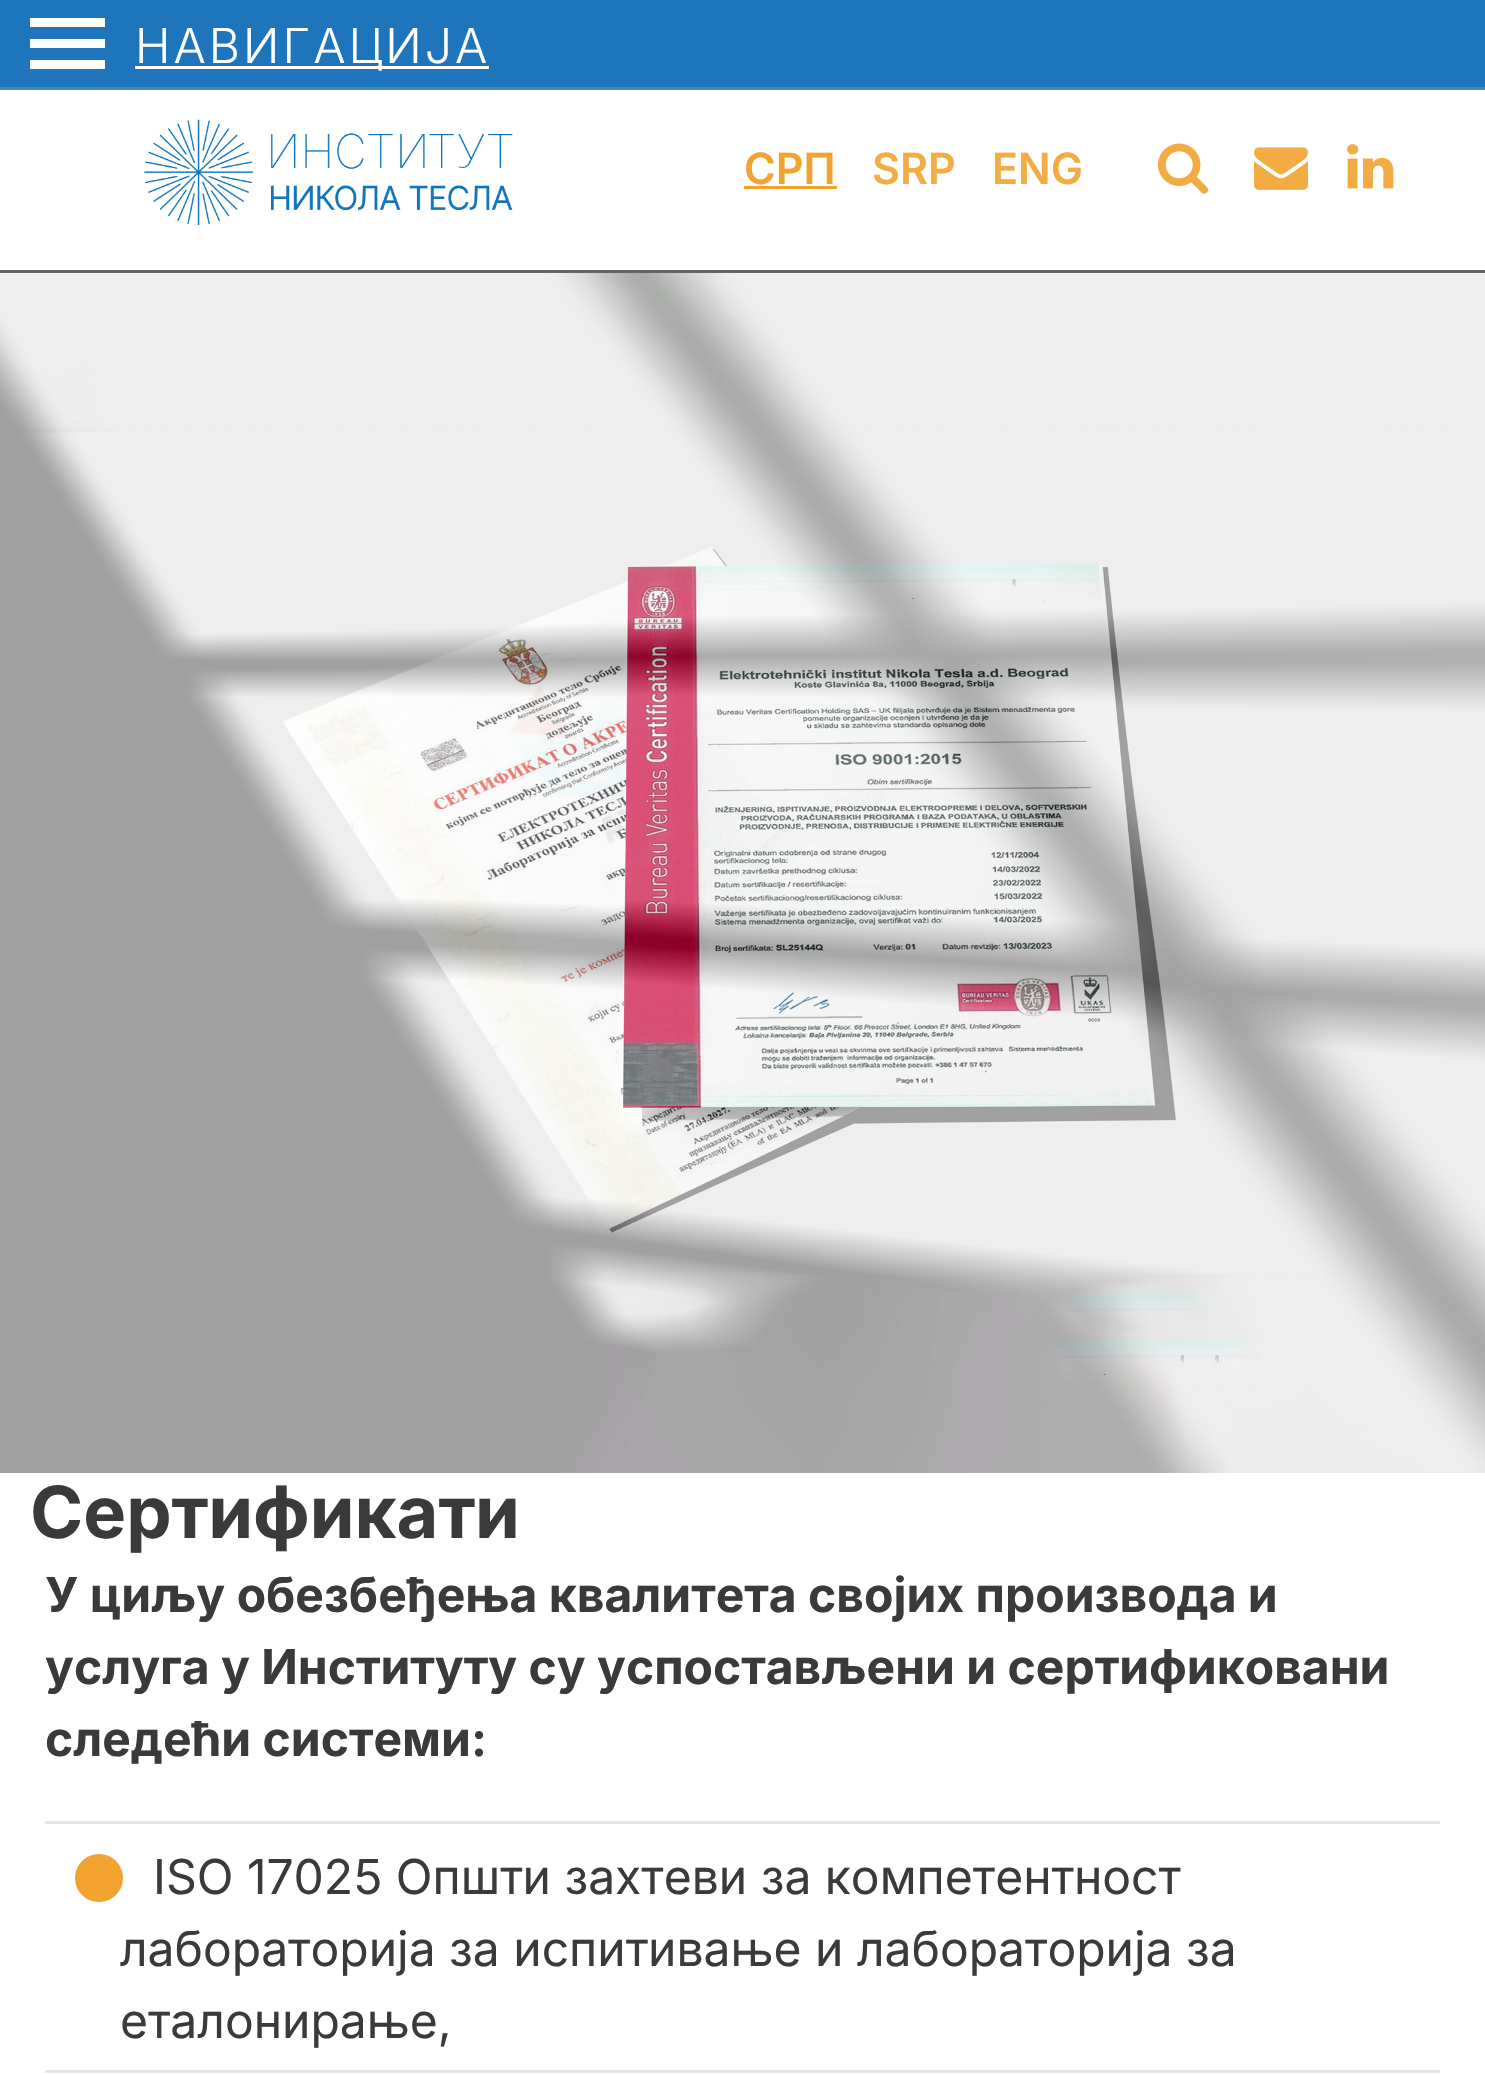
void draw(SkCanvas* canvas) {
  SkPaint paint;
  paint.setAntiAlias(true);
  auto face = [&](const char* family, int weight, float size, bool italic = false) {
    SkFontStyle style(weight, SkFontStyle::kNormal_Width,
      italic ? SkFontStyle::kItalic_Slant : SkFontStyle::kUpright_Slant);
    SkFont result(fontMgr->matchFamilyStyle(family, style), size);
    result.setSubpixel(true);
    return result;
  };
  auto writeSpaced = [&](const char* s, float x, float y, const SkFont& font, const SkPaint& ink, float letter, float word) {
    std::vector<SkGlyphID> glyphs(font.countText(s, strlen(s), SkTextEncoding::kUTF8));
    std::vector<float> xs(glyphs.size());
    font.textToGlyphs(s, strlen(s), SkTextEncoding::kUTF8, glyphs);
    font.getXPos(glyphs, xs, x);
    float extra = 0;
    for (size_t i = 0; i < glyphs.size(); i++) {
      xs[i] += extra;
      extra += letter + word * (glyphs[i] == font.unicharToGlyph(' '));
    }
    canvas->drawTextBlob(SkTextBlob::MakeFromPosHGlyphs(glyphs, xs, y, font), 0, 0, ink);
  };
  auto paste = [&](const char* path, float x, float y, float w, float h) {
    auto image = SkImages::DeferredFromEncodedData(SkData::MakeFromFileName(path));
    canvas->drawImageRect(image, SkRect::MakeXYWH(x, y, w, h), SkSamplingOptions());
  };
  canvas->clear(0xffffffff);
  {
    const struct { float x, y, w, h; SkColor color; } items[] = {
      {0, 0, 1485, 87, 0xff1e75bc},
      {0, 87, 1485, 3, 0xff408ac6},
      {30, 18, 75, 9, 0xffffffff},
      {30, 39, 75, 9, 0xffffffff},
      {135, 66, 354, 3, 0xffffffff},
      {30, 60, 75, 9, 0xffffffff},
    };
    for (auto [x, y, w, h, color] : items) {
      paint.setColor(color);
      canvas->drawRect(SkRect::MakeXYWH(x, y, w, h), paint);
    }
  }
  paste("img/1.png", 144, 119, 369, 106);
  paint.setColor(0xfff2a22f);
  canvas->drawRect(SkRect::MakeXYWH(744, 186, 93, 3), paint);
  paste("img/2.png", 1158, 143, 51, 51);
  paste("img/3.png", 1254, 147, 54, 43);
  paste("img/4.png", 1347, 144, 47, 45);
  paint.setColor(0xff666666);
  canvas->drawRect(SkRect::MakeXYWH(0, 270, 1485, 3), paint);
  paste("img/5.png", 0, 273, 1485, 1200);
  paint.setColor(0xffe6e6e6);
  canvas->drawRect(SkRect::MakeXYWH(45, 1821, 1395, 3), paint);
  canvas->drawRect(SkRect::MakeXYWH(45, 2070, 1395, 3), paint);
  paint.setColor(0xfff2a22f);
  canvas->drawCircle(99, 1878, 24, paint);
  auto f0 = face("Inter", 300, 48);
  paint.setColor(0xffffffff);
  writeSpaced("НАВИГАЦИЈА", 135, 63, f0, paint, 3, 0);
  auto f1 = face("Inter", 600, 43);
  paint.setColor(0xfff2a22f);
  canvas->drawString("СРП", 744, 184, f1, paint);
  paint.setColor(0xfff3ab44);
  canvas->drawString("SRP", 872, 184, f1, paint);
  canvas->drawString("ENG", 992, 184, f1, paint);
  auto f2 = face("Inter", 700, 72);
  paint.setColor(0xff3a3a3b);
  canvas->drawString("Сертификати", 30, 1538, f2, paint);
  auto f3 = face("Inter", 700, 48);
  {
    const struct { const char* s; float x, y; } items[] = {
      {"У циљу обезбеђења квалитета својих производа и", 45, 1612},
      {"услуга у Институту су успостављени и сертификовани", 45, 1684},
      {"следећи системи:", 45, 1756},
    };
    for (auto [s, x, y] : items) {
      canvas->drawString(s, x, y, f3, paint);
    }
  }
  auto f4 = face("Inter", 400, 48);
  {
    const struct { const char* s; float x, y; } items[] = {
      {"ISO 17025 Општи захтеви за компетентност", 153, 1894},
      {"лабораторија за испитивање и лабораторија за", 120, 1966},
      {"еталонирање,", 120, 2038},
    };
    for (auto [s, x, y] : items) {
      canvas->drawString(s, x, y, f4, paint);
    }
  }
}
